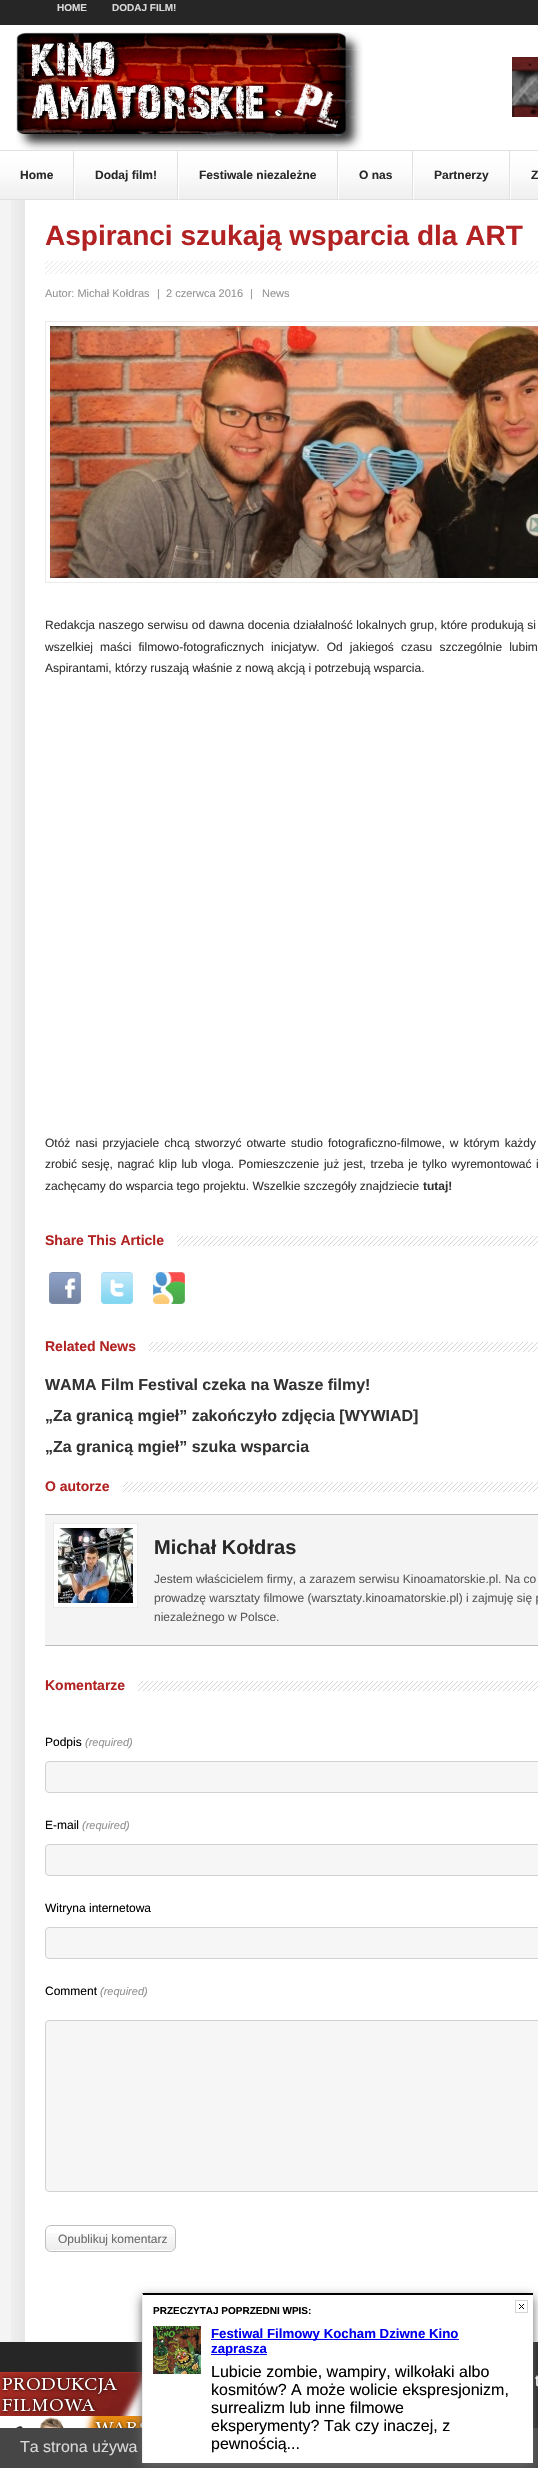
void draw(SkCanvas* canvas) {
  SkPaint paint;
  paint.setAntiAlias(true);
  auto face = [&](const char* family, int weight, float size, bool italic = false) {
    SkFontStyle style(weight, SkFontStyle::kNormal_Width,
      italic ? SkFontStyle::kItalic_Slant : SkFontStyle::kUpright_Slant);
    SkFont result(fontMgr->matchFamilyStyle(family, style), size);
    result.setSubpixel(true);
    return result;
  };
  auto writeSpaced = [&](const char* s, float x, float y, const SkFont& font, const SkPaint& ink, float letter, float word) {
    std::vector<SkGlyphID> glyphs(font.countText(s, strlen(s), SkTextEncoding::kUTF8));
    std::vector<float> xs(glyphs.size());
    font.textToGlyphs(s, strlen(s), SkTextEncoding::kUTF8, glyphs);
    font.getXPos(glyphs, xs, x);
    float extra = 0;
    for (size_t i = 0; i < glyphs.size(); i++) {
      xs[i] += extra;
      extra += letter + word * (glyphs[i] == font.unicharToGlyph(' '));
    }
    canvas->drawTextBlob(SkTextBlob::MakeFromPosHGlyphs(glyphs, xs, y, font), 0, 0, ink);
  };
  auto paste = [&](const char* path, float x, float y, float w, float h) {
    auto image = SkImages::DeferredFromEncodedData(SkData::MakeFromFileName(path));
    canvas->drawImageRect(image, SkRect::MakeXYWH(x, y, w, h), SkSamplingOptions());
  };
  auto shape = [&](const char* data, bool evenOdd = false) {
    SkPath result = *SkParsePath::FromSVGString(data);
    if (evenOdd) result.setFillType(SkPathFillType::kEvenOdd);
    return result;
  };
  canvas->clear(0xfff4f4f4);
  paint.setColor(0xff262626);
  canvas->drawRect(SkRect::MakeXYWH(0, 0, 538, 25), paint);
  paint.setColor(0xffffffff);
  canvas->drawRect(SkRect::MakeXYWH(0, 25, 538, 125), paint);
  paste("img/1.png", 16, 32, 347, 118);
  paste("img/2.png", 512, 57, 26, 60);
  paste("img/3.png", 0, 151, 538, 48);
  {
    const struct { float x, y, w, h; SkColor color; } items[] = {
      {0, 150, 538, 1, 0xffe1e1e1},
      {0, 199, 538, 1, 0xffe1e1e1},
      {74, 168, 1, 31, 0xffffffff},
      {73, 151, 1, 48, 0xffe1e1e1},
      {178, 168, 1, 31, 0xffffffff},
      {177, 151, 1, 48, 0xffe1e1e1},
      {338, 168, 1, 31, 0xffffffff},
      {337, 151, 1, 48, 0xffe1e1e1},
      {413, 168, 1, 31, 0xffffffff},
      {412, 151, 1, 48, 0xffe1e1e1},
      {510, 168, 1, 31, 0xffffffff},
      {509, 151, 1, 48, 0xffe1e1e1},
    };
    for (auto [x, y, w, h, color] : items) {
      paint.setColor(color);
      canvas->drawRect(SkRect::MakeXYWH(x, y, w, h), paint);
    }
  }
  paste("img/4.png", 11, 200, 527, 2142);
  paste("img/5.png", 45, 261, 493, 13);
  paint.setStroke(true);
  paint.setStrokeWidth(1);
  paint.setColor(0xffebebeb);
  canvas->drawRect(SkRect::MakeXYWH(45.5f, 321.5f, 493, 261), paint);
  paste("img/6.png", 50, 326, 488, 252);
  paste("img/7.png", 177, 1236, 361, 10);
  paste("img/8.png", 49, 1272, 32, 32);
  paste("img/9.png", 101, 1272, 32, 32);
  paste("img/10.png", 153, 1272, 32, 32);
  paste("img/11.png", 149, 1342, 389, 10);
  paste("img/12.png", 123, 1482, 415, 10);
  paint.setStroke(false);
  {
    const struct { float x, y, w, h; SkColor color; } items[] = {
      {45, 1515, 493, 130, 0xfff4f4f4},
      {45, 1514, 493, 1, 0xffbcbcbc},
      {45, 1645, 493, 1, 0xffbcbcbc},
    };
    for (auto [x, y, w, h, color] : items) {
      paint.setColor(color);
      canvas->drawRect(SkRect::MakeXYWH(x, y, w, h), paint);
    }
  }
  paint.setColor(0xffffffff);
  canvas->drawRect(SkRect::MakeXYWH(53.5f, 1523.5f, 84, 84), paint);
  paint.setStroke(true);
  paint.setColor(0xffebebeb);
  canvas->drawRect(SkRect::MakeXYWH(53.5f, 1523.5f, 84, 84), paint);
  paste("img/13.png", 58, 1528, 75, 75);
  paste("img/14.png", 138, 1681, 400, 10);
  paint.setStroke(false);
  paint.setColor(0xfff6f6f6);
  canvas->drawRoundRect(SkRect::MakeXYWH(45.5f, 1761.5f, 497, 31), 3.5f, 3.5f, paint);
  paint.setStroke(true);
  paint.setColor(0xffd2d2d2);
  canvas->drawRoundRect(SkRect::MakeXYWH(45.5f, 1761.5f, 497, 31), 3.5f, 3.5f, paint);
  paint.setStroke(false);
  paint.setColor(0xfff6f6f6);
  canvas->drawRoundRect(SkRect::MakeXYWH(45.5f, 1844.5f, 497, 31), 3.5f, 3.5f, paint);
  paint.setStroke(true);
  paint.setColor(0xffd2d2d2);
  canvas->drawRoundRect(SkRect::MakeXYWH(45.5f, 1844.5f, 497, 31), 3.5f, 3.5f, paint);
  paint.setStroke(false);
  paint.setColor(0xfff6f6f6);
  canvas->drawRoundRect(SkRect::MakeXYWH(45.5f, 1927.5f, 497, 31), 3.5f, 3.5f, paint);
  paint.setStroke(true);
  paint.setColor(0xffd2d2d2);
  canvas->drawRoundRect(SkRect::MakeXYWH(45.5f, 1927.5f, 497, 31), 3.5f, 3.5f, paint);
  paint.setStroke(false);
  paint.setColor(0xfff6f6f6);
  canvas->drawRoundRect(SkRect::MakeXYWH(45.5f, 2020.5f, 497, 171), 3.5f, 3.5f, paint);
  paint.setStroke(true);
  paint.setColor(0xffd2d2d2);
  canvas->drawRoundRect(SkRect::MakeXYWH(45.5f, 2020.5f, 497, 171), 3.5f, 3.5f, paint);
  paste("img/15.png", 45, 2233, 131, 17);
  paint.setColor(0xffbfbfbf);
  canvas->drawRoundRect(SkRect::MakeXYWH(45.5f, 2225.5f, 130, 26), 5.5f, 5.5f, paint);
  paint.setStroke(false);
  paint.setColor(0xff262626);
  canvas->drawRect(SkRect::MakeXYWH(0, 2342, 538, 86), paint);
  paste("img/18.png", 0, 2372, 142, 44);
  paste("img/19.png", 0, 2416, 142, 12);
  paint.setColor(0xff464646);
  canvas->drawRect(SkRect::MakeXYWH(0, 2428, 538, 40), paint);
  paint.setColor(0xff666666);
  paint.setMaskFilter(SkMaskFilter::MakeBlur(kNormal_SkBlurStyle, 5));
  canvas->drawRect(SkRect::MakeXYWH(142, 2297, 391, 170), paint);
  paint.setMaskFilter(nullptr);
  paint.setColor(0xffffffff);
  canvas->drawRect(SkRect::MakeXYWH(142, 2293, 391, 170), paint);
  paint.setColor(0xff000000);
  canvas->drawPath(shape("M142 2293H533V2295H143Z"), paint);
  paint.setColor(0xfff0f0f0);
  canvas->drawPath(shape("M142 2463V2293L143 2295V2463Z"), paint);
  paste("img/16.png", 515, 2300, 13, 13);
  paste("img/17.png", 153, 2326, 48, 48);
  paint.setColor(0xff0000ee);
  canvas->drawRect(SkRect::MakeXYWH(211, 2339, 248, 1), paint);
  canvas->drawRect(SkRect::MakeXYWH(211, 2354, 56, 1), paint);
  auto f0 = face("Liberation Sans", 700, 10);
  paint.setColor(0xffd8d8d8);
  canvas->drawString("HOME", 57, 11, f0, paint);
  canvas->drawString("DODAJ FILM!", 112, 11, f0, paint);
  auto f1 = face("Liberation Sans", 700, 12);
  paint.setColor(0xff292929);
  {
    const struct { const char* s; float x, y; } items[] = {
      {"Home", 20, 179},
      {"Dodaj film!", 95, 179},
      {"Festiwale niezależne", 199, 179},
      {"O nas", 359, 179},
      {"Partnerzy", 434, 179},
      {"Z", 531, 179},
    };
    for (auto [s, x, y] : items) {
      canvas->drawString(s, x, y, f1, paint);
    }
  }
  auto f2 = face("Liberation Sans", 700, 28);
  paint.setColor(0xffb22222);
  canvas->drawString("Aspiranci szukają wsparcia dla ART", 45, 245, f2, paint);
  auto f3 = face("Liberation Sans", 400, 11);
  paint.setColor(0xff949494);
  {
    const struct { const char* s; float x, y; } items[] = {
      {"Autor: Michał Kołdras", 45, 297},
      {"|", 157, 297},
      {"2 czerwca 2016", 166, 297},
      {"|", 250, 297},
      {"News", 262, 297},
    };
    for (auto [s, x, y] : items) {
      canvas->drawString(s, x, y, f3, paint);
    }
  }
  auto f4 = face("Liberation Sans", 400, 12);
  paint.setColor(0xff333333);
  writeSpaced("Redakcja naszego serwisu od dawna docenia działalność lokalnych grup, które produkują si", 45, 629, f4, paint, 0, 0.25f);
  writeSpaced("wszelkiej maści filmowo-fotograficznych inicjatyw. Od jakiegoś czasu szczególnie lubim", 45, 651, f4, paint, 0, 3.75f);
  canvas->drawString("Aspirantami, którzy ruszają właśnie z nową akcją i potrzebują wsparcia.", 45, 672, f4, paint);
  writeSpaced("Otóż nasi przyjaciele chcą stworzyć otwarte studio fotograficzno-filmowe, w którym każdy", 45, 1147, f4, paint, 0, 1.75f);
  writeSpaced("zrobić sesję, nagrać klip lub vloga. Pomieszczenie już jest, trzeba je tylko wyremontować i", 45, 1168, f4, paint, 0, 1.25f);
  canvas->drawString("zachęcamy do wsparcia tego projektu. Wszelkie szczegóły znajdziecie", 45, 1190, f4, paint);
  canvas->drawString("tutaj!", 423, 1190, f1, paint);
  auto f5 = face("Liberation Sans", 700, 14);
  paint.setColor(0xffb22222);
  canvas->drawString("Share This Article", 45, 1245, f5, paint);
  canvas->drawString("Related News", 45, 1351, f5, paint);
  auto f6 = face("Liberation Sans", 700, 16);
  paint.setColor(0xff333333);
  {
    const struct { const char* s; float x, y; } items[] = {
      {"WAMA Film Festival czeka na Wasze filmy!", 45, 1390},
      {"„Za granicą mgieł” zakończyło zdjęcia [WYWIAD]", 45, 1421},
      {"„Za granicą mgieł” szuka wsparcia", 45, 1452},
    };
    for (auto [s, x, y] : items) {
      canvas->drawString(s, x, y, f6, paint);
    }
  }
  paint.setColor(0xffb22222);
  canvas->drawString("O autorze", 45, 1491, f5, paint);
  auto f7 = face("Liberation Sans", 700, 20);
  paint.setColor(0xff292929);
  canvas->drawString("Michał Kołdras", 154, 1554, f7, paint);
  paint.setColor(0xff595959);
  {
    const struct { const char* s; float x, y; } items[] = {
      {"Jestem właścicielem firmy, a zarazem serwisu Kinoamatorskie.pl. Na co", 154, 1583},
      {"prowadzę warsztaty filmowe (warsztaty.kinoamatorskie.pl) i zajmuję się p", 154, 1602},
      {"niezależnego w Polsce.", 154, 1621},
    };
    for (auto [s, x, y] : items) {
      canvas->drawString(s, x, y, f4, paint);
    }
  }
  paint.setColor(0xffb22222);
  canvas->drawString("Komentarze", 45, 1690, f5, paint);
  paint.setColor(0xff000000);
  canvas->drawString("Podpis", 45, 1746, f4, paint);
  auto f8 = face("Liberation Sans", 400, 11, true);
  paint.setColor(0xff949494);
  canvas->drawString("(required)", 85, 1746, f8, paint);
  paint.setColor(0xff000000);
  canvas->drawString("E-mail", 45, 1829, f4, paint);
  paint.setColor(0xff949494);
  canvas->drawString("(required)", 82, 1829, f8, paint);
  paint.setColor(0xff000000);
  canvas->drawString("Witryna internetowa", 45, 1912, f4, paint);
  canvas->drawString("Comment", 45, 1995, f4, paint);
  paint.setColor(0xff949494);
  canvas->drawString("(required)", 100, 1995, f8, paint);
  paint.setColor(0xff6a6a6a);
  canvas->drawString("Opublikuj komentarz", 58, 2243, f4, paint);
  paint.setColor(0xff000000);
  canvas->drawString("PRZECZYTAJ POPRZEDNI WPIS:", 153, 2314, f0, paint);
  auto f9 = face("Liberation Sans", 700, 13.25f);
  paint.setColor(0xff0000ee);
  canvas->drawString("Festiwal Filmowy Kocham Dziwne Kino", 211, 2338, f9, paint);
  canvas->drawString("zaprasza", 211, 2353, f9, paint);
  auto f10 = face("Liberation Sans", 400, 16);
  paint.setColor(0xff000000);
  {
    const struct { const char* s; float x, y; } items[] = {
      {"Lubicie zombie, wampiry, wilkołaki albo", 211, 2377},
      {"kosmitów? A może wolicie ekspresjonizm,", 211, 2395},
      {"surrealizm lub inne filmowe", 211, 2413},
      {"eksperymenty? Tak czy inaczej, z", 211, 2431},
      {"pewnością...", 211, 2449},
    };
    for (auto [s, x, y] : items) {
      canvas->drawString(s, x, y, f10, paint);
    }
  }
  paint.setColor(0xffffffff);
  canvas->drawString("t", 535, 2386, f10, paint);
  paint.setColor(0xffd8d8d8);
  canvas->drawString("Ta strona używa", 20, 2452, f10, paint);
}
